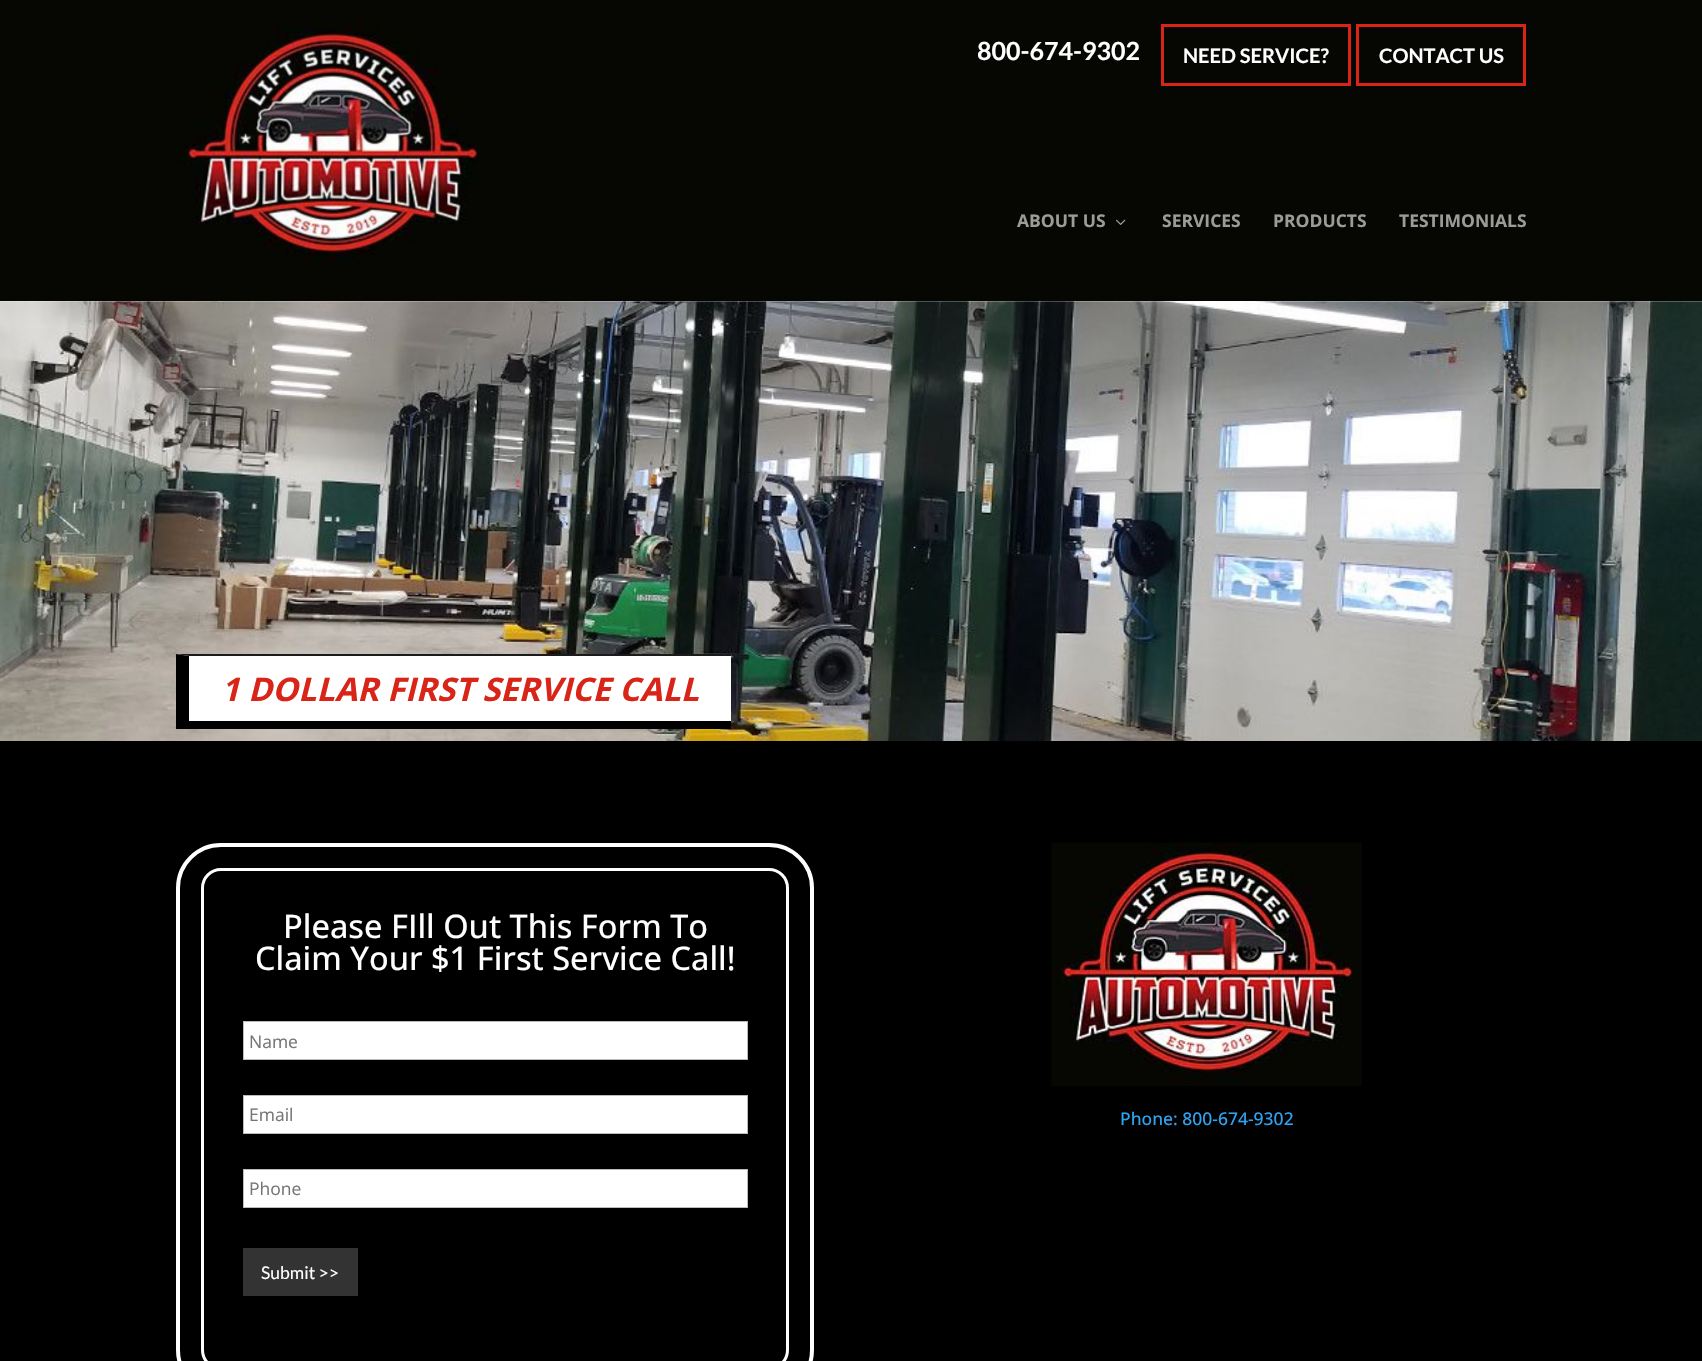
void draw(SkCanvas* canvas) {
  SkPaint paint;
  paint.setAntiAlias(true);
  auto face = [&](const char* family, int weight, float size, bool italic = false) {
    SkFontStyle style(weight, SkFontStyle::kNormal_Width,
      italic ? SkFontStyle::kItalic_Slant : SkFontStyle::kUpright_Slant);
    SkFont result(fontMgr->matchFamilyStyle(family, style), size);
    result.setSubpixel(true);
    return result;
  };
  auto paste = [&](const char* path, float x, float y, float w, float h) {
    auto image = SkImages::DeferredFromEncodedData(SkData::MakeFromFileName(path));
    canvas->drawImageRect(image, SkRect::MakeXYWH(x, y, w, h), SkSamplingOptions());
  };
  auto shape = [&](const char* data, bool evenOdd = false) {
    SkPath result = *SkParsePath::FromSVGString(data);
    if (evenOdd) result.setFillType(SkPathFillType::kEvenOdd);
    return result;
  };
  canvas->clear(0xffffffff);
  paint.setColor(0xff060702);
  canvas->drawRect(SkRect::MakeXYWH(0, 0, 1702, 301), paint);
  paste("img/1.png", 176, 24, 302, 240);
  paint.setStroke(true);
  paint.setStrokeWidth(3);
  paint.setColor(0xffd92418);
  canvas->drawRect(SkRect::MakeXYWH(1162.5f, 25.5f, 187, 59), paint);
  canvas->drawRect(SkRect::MakeXYWH(1357.5f, 25.5f, 167, 59), paint);
  paste("img/2.png", 1116, 219, 10, 6);
  paste("img/3.png", 0, 301, 1702, 440);
  paint.setStroke(false);
  paint.setColor(0xffffffff);
  canvas->drawRect(SkRect::MakeXYWH(176, 654, 555, 67), paint);
  paint.setColor(0xff1b1b1b);
  canvas->drawPath(shape("M176 654H731V656H189Z"), paint);
  paint.setColor(0xff000000);
  canvas->drawRect(SkRect::MakeXYWH(176, 721, 555, 8), paint);
  canvas->drawPath(shape("M176 729V654L189 656V721Z"), paint);
  canvas->drawRect(SkRect::MakeXYWH(0, 741, 1702, 620), paint);
  paint.setStroke(true);
  paint.setStrokeWidth(4);
  paint.setColor(0xffffffff);
  canvas->drawRoundRect(SkRect::MakeXYWH(178, 845, 634, 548), 43, 43, paint);
  paint.setStrokeWidth(3);
  paint.setColor(0xfffefefe);
  canvas->drawRoundRect(SkRect::MakeXYWH(202.5f, 869.5f, 585, 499), 18.5f, 18.5f, paint);
  paint.setStroke(false);
  paint.setColor(0xffffffff);
  canvas->drawRect(SkRect::MakeXYWH(243.5f, 1021.5f, 504, 38), paint);
  paint.setStroke(true);
  paint.setStrokeWidth(1);
  paint.setColor(0xffbbbbbb);
  canvas->drawRect(SkRect::MakeXYWH(243.5f, 1021.5f, 504, 38), paint);
  paint.setStroke(false);
  paint.setColor(0xffffffff);
  canvas->drawRect(SkRect::MakeXYWH(243.5f, 1095.5f, 504, 38), paint);
  paint.setStroke(true);
  paint.setColor(0xffbbbbbb);
  canvas->drawRect(SkRect::MakeXYWH(243.5f, 1095.5f, 504, 38), paint);
  paint.setStroke(false);
  paint.setColor(0xffffffff);
  canvas->drawRect(SkRect::MakeXYWH(243.5f, 1169.5f, 504, 38), paint);
  paint.setStroke(true);
  paint.setColor(0xffbbbbbb);
  canvas->drawRect(SkRect::MakeXYWH(243.5f, 1169.5f, 504, 38), paint);
  paint.setStroke(false);
  paint.setColor(0xff333333);
  canvas->drawRect(SkRect::MakeXYWH(243, 1248, 115, 48), paint);
  paste("img/4.png", 1051, 842, 311, 244);
  auto f0 = face("Lato", 700, 25);
  paint.setColor(0xffffffff);
  canvas->drawString("800-674-9302", 977, 60, f0, paint);
  auto f1 = face("Lato", 700, 20);
  canvas->drawString("NEED SERVICE?", 1183, 63, f1, paint);
  canvas->drawString("CONTACT US", 1379, 63, f1, paint);
  auto f2 = face("Open Sans", 700, 17.5f);
  paint.setColor(0xff9b9c9a);
  {
    const struct { const char* s; float x, y; } items[] = {
      {"ABOUT US", 1017, 227},
      {"SERVICES", 1162, 227},
      {"PRODUCTS", 1273, 227},
      {"TESTIMONIALS", 1399, 227},
    };
    for (auto [s, x, y] : items) {
      canvas->drawString(s, x, y, f2, paint);
    }
  }
  auto f3 = face("Open Sans", 700, 32.5f, true);
  paint.setColor(0xffd92418);
  canvas->drawString("1 DOLLAR FIRST SERVICE CALL", 221, 701, f3, paint);
  auto f4 = face("Open Sans", 500, 32.5f);
  paint.setColor(0xffffffff);
  canvas->drawString("Please FIll Out This Form To", 283, 938, f4, paint);
  canvas->drawString("Claim Your $1 First Service Call!", 255, 970, f4, paint);
  auto f5 = face("Open Sans", 400, 17.5f);
  paint.setColor(0xff757575);
  {
    const struct { const char* s; float x, y; } items[] = {
      {"Name", 249, 1048},
      {"Email", 249, 1121},
      {"Phone", 249, 1195},
    };
    for (auto [s, x, y] : items) {
      canvas->drawString(s, x, y, f5, paint);
    }
  }
  auto f6 = face("Lato", 400, 17.5f);
  paint.setColor(0xffffffff);
  canvas->drawString("Submit >>", 261, 1279, f6, paint);
  auto f7 = face("Open Sans", 500, 17.5f);
  paint.setColor(0xff2ea3f2);
  canvas->drawString("Phone: 800-674-9302", 1120, 1125, f7, paint);
}
